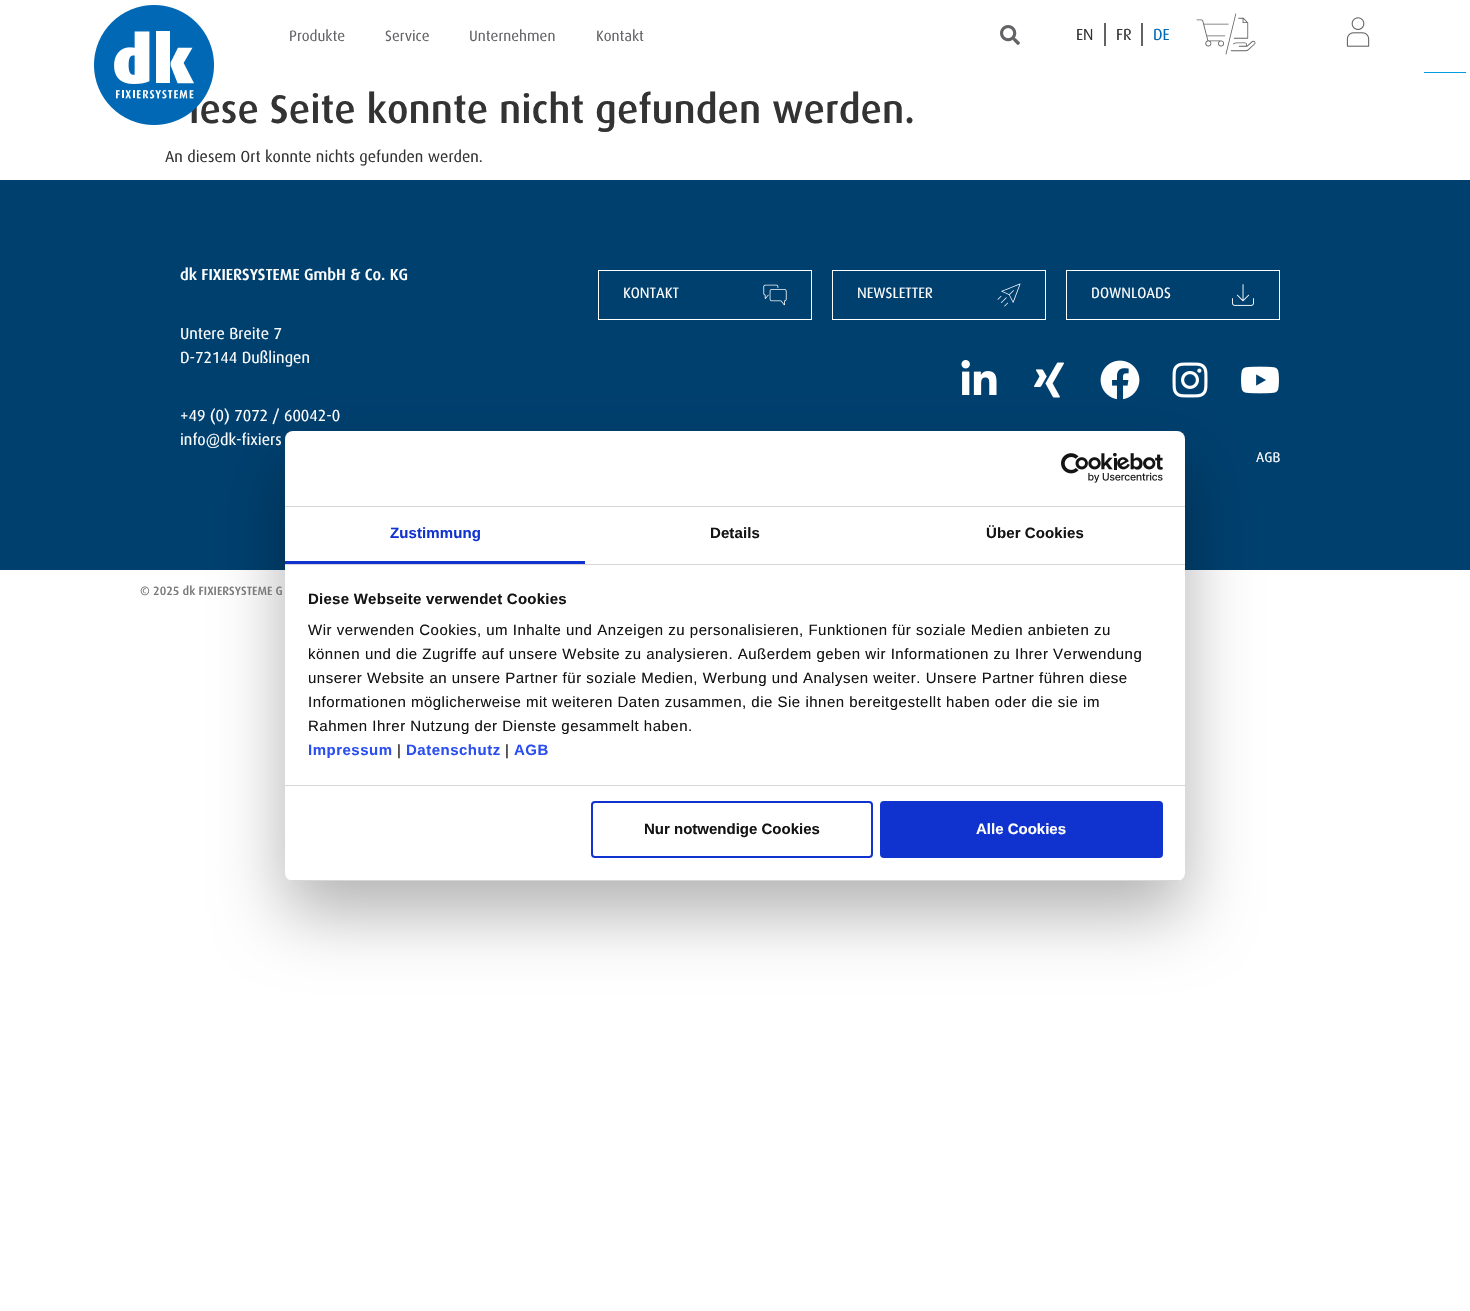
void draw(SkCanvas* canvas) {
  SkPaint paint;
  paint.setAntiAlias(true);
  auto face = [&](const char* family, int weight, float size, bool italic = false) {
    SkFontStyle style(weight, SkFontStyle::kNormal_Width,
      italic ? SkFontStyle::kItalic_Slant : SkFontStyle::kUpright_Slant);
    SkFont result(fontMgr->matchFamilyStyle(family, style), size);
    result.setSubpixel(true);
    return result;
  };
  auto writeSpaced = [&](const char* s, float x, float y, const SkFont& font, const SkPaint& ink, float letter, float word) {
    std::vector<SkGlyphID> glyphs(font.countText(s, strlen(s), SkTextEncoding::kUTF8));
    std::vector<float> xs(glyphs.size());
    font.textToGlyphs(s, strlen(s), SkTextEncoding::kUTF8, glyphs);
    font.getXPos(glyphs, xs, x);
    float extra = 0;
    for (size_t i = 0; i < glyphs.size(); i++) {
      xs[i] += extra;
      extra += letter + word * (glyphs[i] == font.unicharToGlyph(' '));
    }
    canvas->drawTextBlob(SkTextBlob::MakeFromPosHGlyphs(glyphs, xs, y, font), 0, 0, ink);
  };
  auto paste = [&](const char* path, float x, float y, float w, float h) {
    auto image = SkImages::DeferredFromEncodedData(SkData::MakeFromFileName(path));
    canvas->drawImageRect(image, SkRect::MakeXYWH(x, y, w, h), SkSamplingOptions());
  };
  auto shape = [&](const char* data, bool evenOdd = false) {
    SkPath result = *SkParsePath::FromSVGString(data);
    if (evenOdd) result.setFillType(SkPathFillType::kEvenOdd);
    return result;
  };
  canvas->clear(0xffffffff);
  paste("img/2.png", 1000, 25, 20, 20);
  paint.setColor(0xff626366);
  canvas->drawRect(SkRect::MakeXYWH(1104, 23, 2, 23), paint);
  canvas->drawRect(SkRect::MakeXYWH(1141, 23, 2, 23), paint);
  paste("img/3.png", 1196, 13, 60, 42);
  paste("img/4.png", 1346, 17, 24, 30);
  paste("img/5.png", 1424, 72, 42, 1);
  paint.setColor(0xff00406f);
  canvas->drawRect(SkRect::MakeXYWH(0, 180, 1470, 390), paint);
  paint.setStroke(true);
  paint.setStrokeWidth(1);
  paint.setColor(0xffffffff);
  canvas->drawRect(SkRect::MakeXYWH(598.5f, 270.5f, 213, 49), paint);
  paste("img/6.png", 763, 284, 24, 22);
  canvas->drawRect(SkRect::MakeXYWH(832.5f, 270.5f, 213, 49), paint);
  paste("img/7.png", 997, 283, 24, 24);
  canvas->drawRect(SkRect::MakeXYWH(1066.5f, 270.5f, 213, 49), paint);
  paste("img/8.png", 1232, 284, 22, 22);
  paste("img/9.png", 961, 360, 36, 35);
  paste("img/10.png", 1034, 362, 30, 36);
  paste("img/11.png", 1100, 360, 40, 40);
  paste("img/12.png", 1172, 362, 36, 36);
  paste("img/13.png", 1241, 366, 38, 28);
  paint.setStroke(false);
  paint.setColor(0x4d000000);
  paint.setMaskFilter(SkMaskFilter::MakeBlur(kNormal_SkBlurStyle, 34));
  canvas->drawRoundRect(SkRect::MakeXYWH(285, 463, 900, 450), 8, 8, paint);
  paint.setMaskFilter(nullptr);
  paint.setColor(0xffffffff);
  canvas->drawRoundRect(SkRect::MakeXYWH(285, 431, 900, 450), 8, 8, paint);
  paint.setColor(0xffd6d6d6);
  canvas->drawRect(SkRect::MakeXYWH(285, 506, 900, 1), paint);
  paste("img/14.png", 1061, 453, 102, 30);
  {
    const struct { float x, y, w, h; SkColor color; } items[] = {
      {285, 564, 900, 1, 0xffd6d6d6},
      {285, 561, 300, 3, 0xff1032cf},
      {285, 785, 900, 1, 0xffd6d6d6},
    };
    for (auto [x, y, w, h, color] : items) {
      paint.setColor(color);
      canvas->drawRect(SkRect::MakeXYWH(x, y, w, h), paint);
    }
  }
  canvas->save();
  canvas->clipPath(shape("M293 431H1177C1181.5 431 1185 434.5 1185 439V873C1185 877.5 1181.5 881 1177 881H293C288.5 881 285 877.5 285 873V439C285 434.5 288.5 431 293 431Z"), true);
  canvas->drawRect(SkRect::MakeXYWH(285, 880, 900, 1), paint);
  canvas->restore();
  paint.setStroke(true);
  paint.setStrokeWidth(2);
  paint.setColor(0xff1032cf);
  canvas->drawRoundRect(SkRect::MakeXYWH(592, 802, 280, 55), 3, 3, paint);
  paint.setStroke(false);
  canvas->drawRoundRect(SkRect::MakeXYWH(881, 802, 281, 55), 3, 3, paint);
  paint.setStroke(true);
  canvas->drawRoundRect(SkRect::MakeXYWH(881, 802, 281, 55), 3, 3, paint);
  auto f0 = face("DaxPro", 400, 15);
  paint.setStroke(false);
  paint.setColor(0xff626366);
  {
    const struct { const char* s; float x, y; } items[] = {
      {"Produkte", 289, 41},
      {"Service", 385, 41},
      {"Unternehmen", 469, 41},
      {"Kontakt", 596, 41},
    };
    for (auto [s, x, y] : items) {
      canvas->drawString(s, x, y, f0, paint);
    }
  }
  auto f1 = face("DaxPro", 400, 16);
  paint.setColor(0xff333333);
  canvas->drawString("EN", 1076, 40, f1, paint);
  canvas->drawString("FR", 1116, 40, f1, paint);
  paint.setColor(0xff0069b3);
  canvas->drawString("DE", 1153, 40, f1, paint);
  auto f2 = face("DaxPro", 500, 40);
  paint.setColor(0xff333333);
  canvas->drawString("iese Seite konnte nicht gefunden werden.", 189, 123, f2, paint);
  paste("img/1.png", 94, 5, 120, 120);
  canvas->drawString("An diesem Ort konnte nichts gefunden werden.", 165, 162, f1, paint);
  auto f3 = face("DaxPro", 500, 16);
  paint.setColor(0xffffffff);
  canvas->drawString("dk FIXIERSYSTEME GmbH & Co. KG", 180, 280, f3, paint);
  {
    const struct { const char* s; float x, y; } items[] = {
      {"Untere Breite 7", 180, 339},
      {"D-72144 Dußlingen", 180, 363},
      {"+49 (0) 7072 / 60042-0", 180, 421},
      {"info@dk-fixiers", 180, 445},
    };
    for (auto [s, x, y] : items) {
      canvas->drawString(s, x, y, f1, paint);
    }
  }
  {
    const struct { const char* s; float x, y; } items[] = {
      {"KONTAKT", 623, 298},
      {"NEWSLETTER", 857, 298},
      {"DOWNLOADS", 1091, 298},
    };
    for (auto [s, x, y] : items) {
      canvas->drawString(s, x, y, f0, paint);
    }
  }
  auto f4 = face("DaxPro", 400, 14);
  canvas->drawString("AGB", 1256, 462, f4, paint);
  auto f5 = face("DaxPro", 500, 12);
  paint.setColor(0xff7a7a7a);
  canvas->drawString("© 2025 dk FIXIERSYSTEME G", 140, 595, f5, paint);
  auto f6 = face("Liberation Sans", 700, 15);
  paint.setColor(0xff1032cf);
  writeSpaced("Zustimmung", 390, 538, f6, paint, 0.1f, 0);
  paint.setColor(0xff141414);
  writeSpaced("Details", 710, 538, f6, paint, 0.1f, 0);
  writeSpaced("Über Cookies", 986, 538, f6, paint, 0.1f, 0);
  writeSpaced("Diese Webseite verwendet Cookies", 308, 604, f6, paint, 0.25f, 0);
  auto f7 = face("Liberation Sans", 400, 15);
  {
    const struct { const char* s; float x, y; } items[] = {
      {"Wir verwenden Cookies, um Inhalte und Anzeigen zu personalisieren, Funktionen für soziale Medien anbieten zu", 308, 635},
      {"können und die Zugriffe auf unsere Website zu analysieren. Außerdem geben wir Informationen zu Ihrer Verwendung", 308, 659},
      {"unserer Website an unsere Partner für soziale Medien, Werbung und Analysen weiter. Unsere Partner führen diese", 308, 683},
      {"Informationen möglicherweise mit weiteren Daten zusammen, die Sie ihnen bereitgestellt haben oder die sie im", 308, 707},
      {"Rahmen Ihrer Nutzung der Dienste gesammelt haben.", 308, 731},
    };
    for (auto [s, x, y] : items) {
      writeSpaced(s, x, y, f7, paint, 0.5f, 0);
    }
  }
  paint.setColor(0xff2a4eef);
  writeSpaced("Impressum", 308, 755, f6, paint, 0.5f, 0);
  paint.setColor(0xff141414);
  writeSpaced("|", 397, 755, f7, paint, 0.5f, 0);
  paint.setColor(0xff2a4eef);
  writeSpaced("Datenschutz", 406, 755, f6, paint, 0.5f, 0);
  paint.setColor(0xff141414);
  writeSpaced("|", 505, 755, f7, paint, 0.5f, 0);
  paint.setColor(0xff2a4eef);
  writeSpaced("AGB", 514, 755, f6, paint, 0.5f, 0);
  paint.setColor(0xff141414);
  canvas->drawString("Nur notwendige Cookies", 644, 834, f6, paint);
  paint.setColor(0xffffffff);
  canvas->drawString("Alle Cookies", 976, 834, f6, paint);
}
